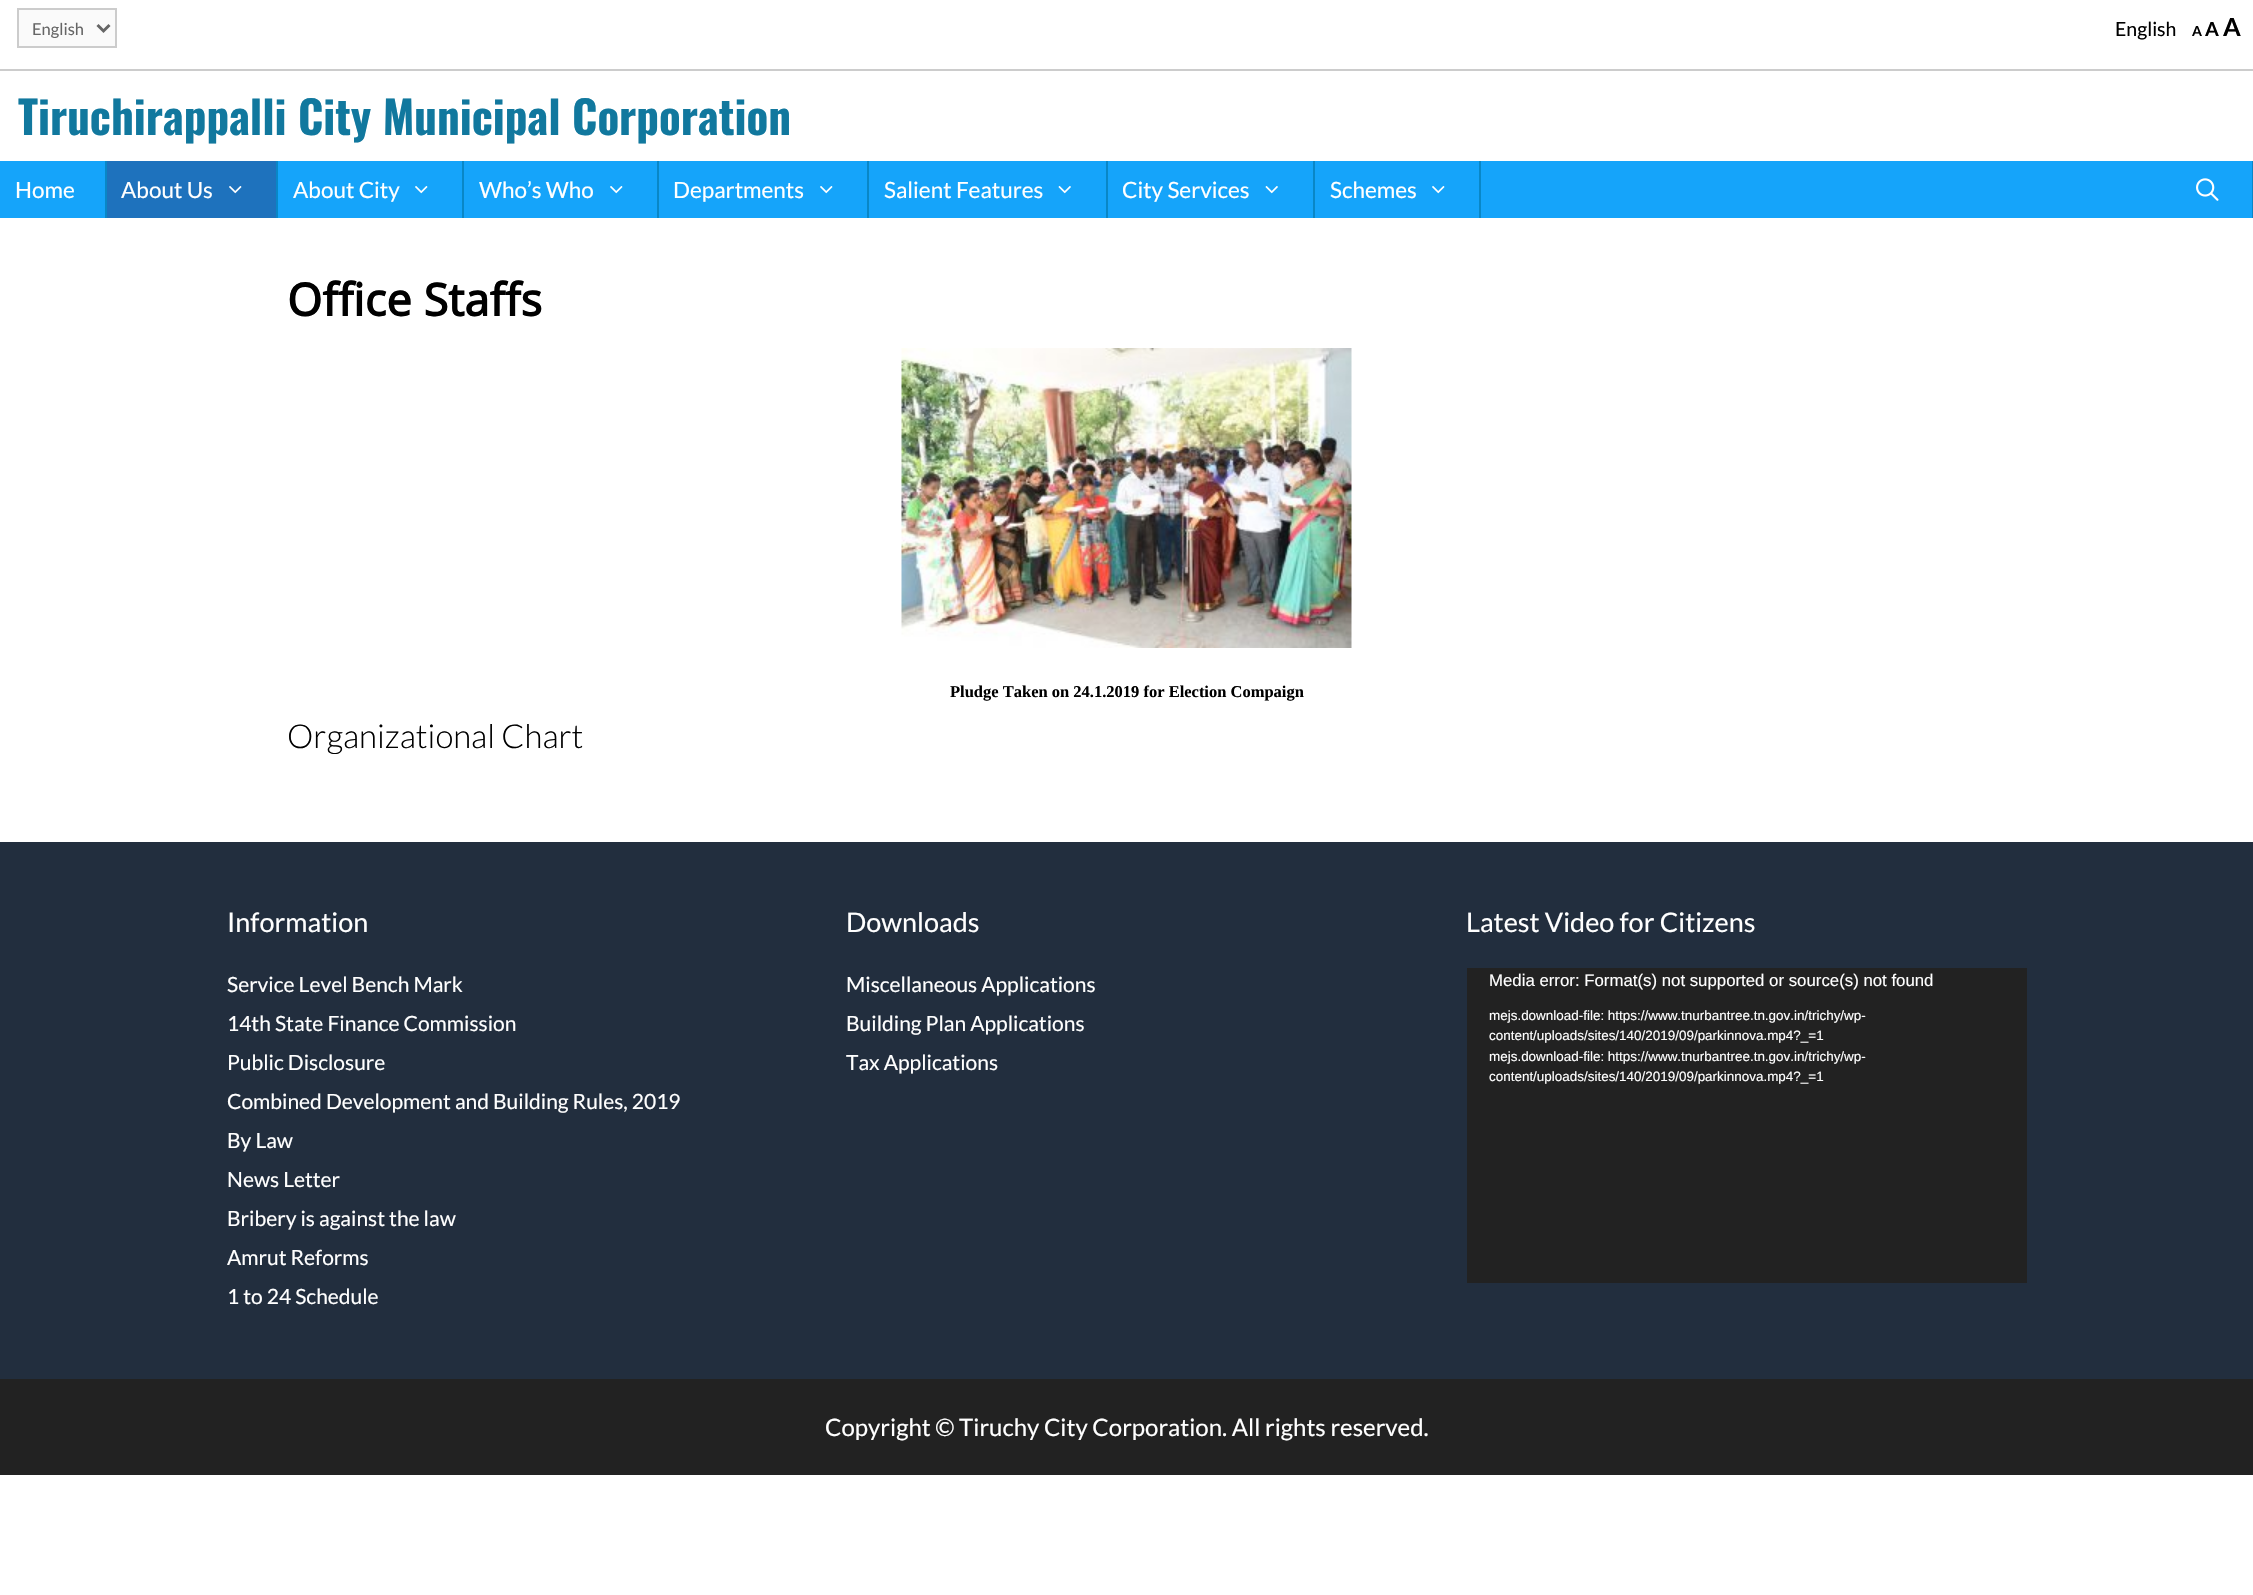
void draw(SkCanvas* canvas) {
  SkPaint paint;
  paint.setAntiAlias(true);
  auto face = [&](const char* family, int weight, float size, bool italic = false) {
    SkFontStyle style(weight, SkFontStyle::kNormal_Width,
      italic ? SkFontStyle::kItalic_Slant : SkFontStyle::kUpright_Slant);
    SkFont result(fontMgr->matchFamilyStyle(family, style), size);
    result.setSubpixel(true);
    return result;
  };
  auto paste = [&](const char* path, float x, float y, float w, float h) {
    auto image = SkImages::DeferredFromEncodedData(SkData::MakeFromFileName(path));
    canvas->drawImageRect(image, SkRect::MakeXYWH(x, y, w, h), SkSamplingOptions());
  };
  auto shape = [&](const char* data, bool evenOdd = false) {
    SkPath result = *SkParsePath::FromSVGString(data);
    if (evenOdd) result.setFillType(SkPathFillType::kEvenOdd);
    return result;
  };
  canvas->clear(0xffffffff);
  paint.setColor(0xffcccccc);
  canvas->drawRect(SkRect::MakeXYWH(0, 69, 2253, 2), paint);
  paint.setColor(0xfffafafa);
  canvas->drawRect(SkRect::MakeXYWH(18, 9, 98, 38), paint);
  paint.setStroke(true);
  paint.setStrokeWidth(2);
  paint.setColor(0xffcccccc);
  canvas->drawRect(SkRect::MakeXYWH(18, 9, 98, 38), paint);
  paint.setStrokeWidth(3);
  paint.setColor(0xff666666);
  canvas->drawPath(shape("M97.5 25L103.5 31L109.5 25"), paint);
  paint.setStroke(false);
  {
    const struct { float x, y, w, h; SkColor color; } items[] = {
      {0, 161, 2252, 57, 0xff15a4fa},
      {105, 161, 2, 57, 0xff0987c7},
      {276, 161, 2, 57, 0xff0987c7},
      {107, 161, 169, 57, 0xff1e72bd},
    };
    for (auto [x, y, w, h, color] : items) {
      paint.setColor(color);
      canvas->drawRect(SkRect::MakeXYWH(x, y, w, h), paint);
    }
  }
  paste("img/1.png", 229, 186, 13, 8);
  paint.setColor(0xff0987c7);
  canvas->drawRect(SkRect::MakeXYWH(462, 161, 2, 57), paint);
  paste("img/2.png", 415, 186, 13, 8);
  canvas->drawRect(SkRect::MakeXYWH(657, 161, 2, 57), paint);
  paste("img/2.png", 610, 186, 13, 8);
  canvas->drawRect(SkRect::MakeXYWH(867, 161, 2, 57), paint);
  paste("img/2.png", 820, 186, 13, 8);
  canvas->drawRect(SkRect::MakeXYWH(1106, 161, 2, 57), paint);
  paste("img/3.png", 1058, 186, 13, 8);
  canvas->drawRect(SkRect::MakeXYWH(1313, 161, 2, 57), paint);
  paste("img/3.png", 1265, 186, 13, 8);
  canvas->drawRect(SkRect::MakeXYWH(1479, 161, 2, 57), paint);
  paste("img/2.png", 1432, 186, 13, 8);
  canvas->drawRect(SkRect::MakeXYWH(2252, 161, 1, 57), paint);
  paste("img/4.png", 2196, 178, 23, 23);
  paste("img/5.png", 901, 348, 451, 300);
  {
    const struct { float x, y, w, h; SkColor color; } items[] = {
      {0, 842, 2253, 537, 0xff222e3e},
      {1467, 968, 560, 315, 0xff222222},
      {0, 1379, 2253, 96, 0xff222222},
    };
    for (auto [x, y, w, h, color] : items) {
      paint.setColor(color);
      canvas->drawRect(SkRect::MakeXYWH(x, y, w, h), paint);
    }
  }
  auto f0 = face("Lato", 400, 16.5f);
  paint.setColor(0xff666666);
  canvas->drawString("English", 32, 35, f0, paint);
  auto f1 = face("Lato", 400, 19.5f);
  paint.setColor(0xff000000);
  canvas->drawString("English", 2115, 36, f1, paint);
  auto f2 = face("Lato", 700, 14);
  canvas->drawString("A", 2192, 36, f2, paint);
  auto f3 = face("Lato", 700, 19.5f);
  canvas->drawString("A", 2205, 36, f3, paint);
  auto f4 = face("Lato", 700, 25);
  canvas->drawString("A", 2223, 36, f4, paint);
  auto f5 = face("Oswald", 700, 45);
  paint.setColor(0xff11789e);
  canvas->drawString("Tiruchirappalli City Municipal Corporation", 18, 135, f5, paint);
  auto f6 = face("Lato", 400, 22.5f);
  paint.setColor(0xffffffff);
  {
    const struct { const char* s; float x, y; } items[] = {
      {"Home", 15, 198},
      {"About Us", 121, 198},
      {"About City", 293, 198},
      {"Who’s Who", 479, 198},
      {"Departments", 673, 198},
      {"Salient Features", 884, 198},
      {"City Services", 1122, 198},
      {"Schemes", 1330, 198},
    };
    for (auto [s, x, y] : items) {
      canvas->drawString(s, x, y, f6, paint);
    }
  }
  auto f7 = face("Noto Sans", 700, 45);
  paint.setColor(0xff000000);
  canvas->drawString("Office Staffs", 287, 316, f7, paint);
  auto f8 = face("Liberation Serif", 700, 16.5f);
  canvas->drawString("Pludge Taken on 24.1.2019 for Election Compaign", 950, 697, f8, paint);
  auto f9 = face("Lato", 300, 33);
  canvas->drawString("Organizational Chart", 287, 748, f9, paint);
  auto f10 = face("Lato", 400, 27);
  paint.setColor(0xffffffff);
  canvas->drawString("Information", 227, 932, f10, paint);
  auto f11 = face("Lato", 400, 21);
  {
    const struct { const char* s; float x, y; } items[] = {
      {"Service Level Bench Mark", 227, 992},
      {"14th State Finance Commission", 227, 1031},
      {"Public Disclosure", 227, 1070},
      {"Combined Development and Building Rules, 2019", 227, 1109},
      {"By Law", 227, 1148},
      {"News Letter", 227, 1187},
      {"Bribery is against the law", 227, 1226},
      {"Amrut Reforms", 227, 1265},
      {"1 to 24 Schedule", 227, 1304},
    };
    for (auto [s, x, y] : items) {
      canvas->drawString(s, x, y, f11, paint);
    }
  }
  canvas->drawString("Downloads", 846, 932, f10, paint);
  {
    const struct { const char* s; float x, y; } items[] = {
      {"Miscellaneous Applications", 846, 992},
      {"Building Plan Applications", 846, 1031},
      {"Tax Applications", 846, 1070},
    };
    for (auto [s, x, y] : items) {
      canvas->drawString(s, x, y, f11, paint);
    }
  }
  canvas->drawString("Latest Video for Citizens", 1466, 932, f10, paint);
  auto f12 = face("Liberation Sans", 400, 16.8f);
  canvas->drawString("Media error: Format(s) not supported or source(s) not found", 1489, 986, f12, paint);
  auto f13 = face("Liberation Sans", 400, 13.45f);
  {
    const struct { const char* s; float x, y; } items[] = {
      {"mejs.download-file: https://www.tnurbantree.tn.gov.in/trichy/wp-", 1489, 1020},
      {"content/uploads/sites/140/2019/09/parkinnova.mp4?_=1", 1489, 1040},
      {"mejs.download-file: https://www.tnurbantree.tn.gov.in/trichy/wp-", 1489, 1061},
      {"content/uploads/sites/140/2019/09/parkinnova.mp4?_=1", 1489, 1081},
    };
    for (auto [s, x, y] : items) {
      canvas->drawString(s, x, y, f13, paint);
    }
  }
  auto f14 = face("Lato", 400, 24);
  canvas->drawString("Copyright © Tiruchy City Corporation. All rights reserved.", 825, 1436, f14, paint);
}
